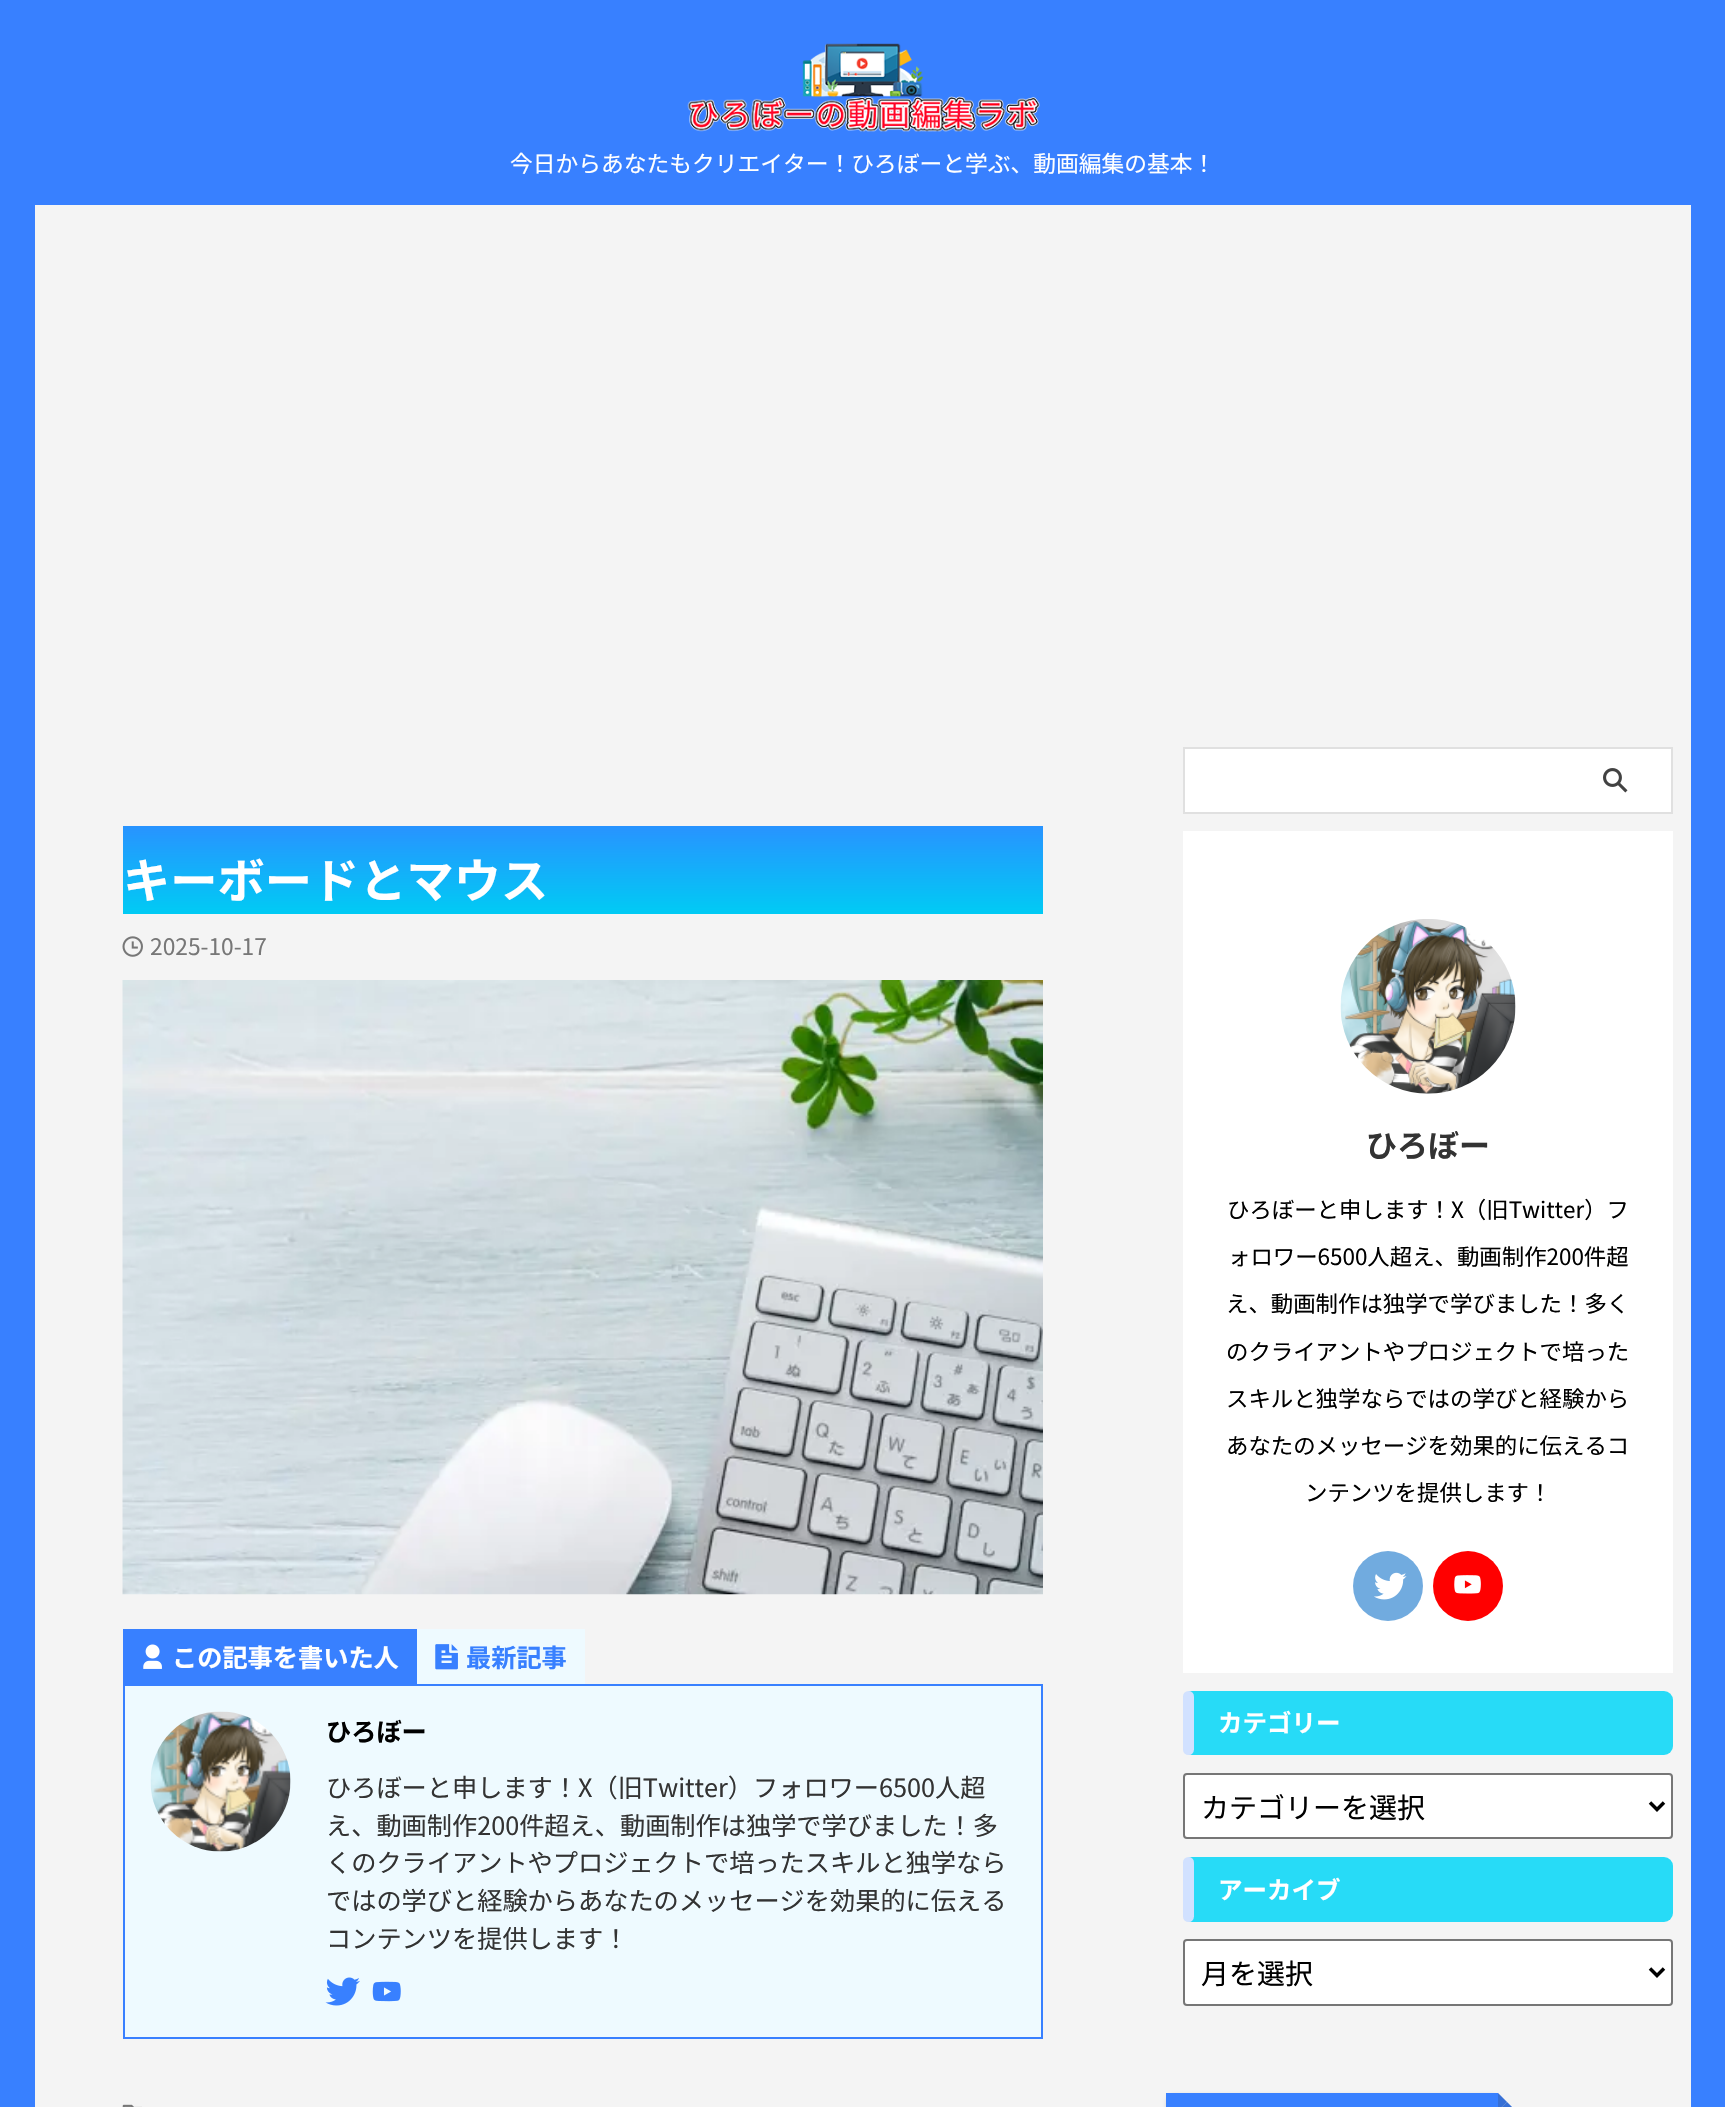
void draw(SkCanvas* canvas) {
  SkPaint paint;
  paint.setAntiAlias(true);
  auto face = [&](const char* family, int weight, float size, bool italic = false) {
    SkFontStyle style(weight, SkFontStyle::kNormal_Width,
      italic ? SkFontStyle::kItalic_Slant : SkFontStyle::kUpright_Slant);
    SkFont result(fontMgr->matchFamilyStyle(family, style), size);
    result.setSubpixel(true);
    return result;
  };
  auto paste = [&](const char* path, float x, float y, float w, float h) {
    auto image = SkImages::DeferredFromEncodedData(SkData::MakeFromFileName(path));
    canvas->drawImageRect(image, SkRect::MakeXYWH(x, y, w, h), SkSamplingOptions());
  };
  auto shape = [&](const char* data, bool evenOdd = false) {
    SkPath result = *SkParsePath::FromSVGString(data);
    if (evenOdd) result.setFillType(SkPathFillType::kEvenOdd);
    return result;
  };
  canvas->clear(0xff3880ff);
  paste("img/1.png", 687, 43, 353, 89);
  paint.setColor(0xfff4f4f4);
  canvas->drawRect(SkRect::MakeXYWH(35, 205, 1656, 1902), paint);
  {
    const SkColor colors[] = {0xff00cbf4, 0xff2893ff};
    const float stops[] = {0, 1};
    const SkPoint ends[] = {{583, 914}, {583, 826}};
    paint.setShader(SkGradientShader::MakeLinear(ends, colors, stops, 2, SkTileMode::kClamp));
    paint.setAlpha(255);
  }
  canvas->drawRect(SkRect::MakeXYWH(123, 826, 920, 88), paint);
  paste("img/2.png", 122, 936, 21, 21);
  paste("img/3.png", 122, 980, 921, 615);
  paint.setShader(nullptr);
  paint.setColor(0xff3880ff);
  canvas->drawRect(SkRect::MakeXYWH(123, 1629, 294, 55), paint);
  paste("img/4.png", 143, 1644, 19, 25);
  paint.setColor(0xffeefaff);
  canvas->drawRect(SkRect::MakeXYWH(417, 1629, 168, 55), paint);
  paste("img/5.png", 435, 1644, 23, 26);
  canvas->drawRect(SkRect::MakeXYWH(124, 1685, 918, 353), paint);
  paint.setStroke(true);
  paint.setStrokeWidth(2);
  paint.setColor(0xff3880ff);
  canvas->drawRect(SkRect::MakeXYWH(124, 1685, 918, 353), paint);
  paste("img/6.png", 150, 1711, 141, 141);
  paste("img/7.png", 325, 1977, 35, 29);
  paste("img/8.png", 372, 1981, 29, 21);
  paste("img/9.png", 122, 2104, 20, 3);
  paint.setColor(0xffe0e0e0);
  canvas->drawRect(SkRect::MakeXYWH(1184, 748, 488, 65), paint);
  paint.setStroke(false);
  paint.setColor(0xffffffff);
  canvas->drawRect(SkRect::MakeXYWH(1185, 749, 486, 63), paint);
  paste("img/10.png", 1603, 768, 25, 25);
  canvas->drawRect(SkRect::MakeXYWH(1183, 831, 490, 842), paint);
  paste("img/11.png", 1340, 919, 176, 175);
  paint.setColor(0xff71abdf);
  canvas->drawCircle(1388, 1586, 35, paint);
  paste("img/12.png", 1374, 1572, 33, 28);
  paint.setColor(0xffff0000);
  canvas->drawCircle(1468, 1586, 35, paint);
  paste("img/13.png", 1454, 1575, 27, 19);
  paint.setColor(0xff27dbf7);
  canvas->drawRoundRect(SkRect::MakeXYWH(1183, 1691, 490, 64), 9, 9, paint);
  paint.setColor(0xffd1e1ff);
  canvas->drawRoundRect(SkRect::MakeXYWH(1183, 1691, 11, 64), 5.5f, 5.5f, paint);
  paint.setColor(0xffffffff);
  canvas->drawRoundRect(SkRect::MakeXYWH(1184, 1774, 488, 64), 3, 3, paint);
  paint.setStroke(true);
  paint.setColor(0xff767676);
  canvas->drawRoundRect(SkRect::MakeXYWH(1184, 1774, 488, 64), 3, 3, paint);
  paint.setStrokeWidth(3.5f);
  paint.setColor(0xff000000);
  canvas->drawPath(shape("M1650 1802.5L1657 1809.5L1664 1802.5"), paint);
  paint.setStroke(false);
  paint.setColor(0xff27dbf7);
  canvas->drawRoundRect(SkRect::MakeXYWH(1183, 1857, 490, 65), 9, 9, paint);
  paint.setColor(0xffd1e1ff);
  canvas->drawRoundRect(SkRect::MakeXYWH(1183, 1857, 11, 65), 5.5f, 5.5f, paint);
  paint.setColor(0xffffffff);
  canvas->drawRoundRect(SkRect::MakeXYWH(1184, 1940, 488, 65), 3, 3, paint);
  paint.setStroke(true);
  paint.setStrokeWidth(2);
  paint.setColor(0xff767676);
  canvas->drawRoundRect(SkRect::MakeXYWH(1184, 1940, 488, 65), 3, 3, paint);
  paint.setStrokeWidth(3.5f);
  paint.setColor(0xff000000);
  canvas->drawPath(shape("M1650 1968.5L1657 1975.5L1664 1968.5"), paint);
  paint.setStroke(false);
  paint.setColor(0x33000000);
  paint.setMaskFilter(SkMaskFilter::MakeBlur(kNormal_SkBlurStyle, 2));
  canvas->drawRoundRect(SkRect::MakeXYWH(1167, 2095, 333, 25), 7, 7, paint);
  paint.setMaskFilter(nullptr);
  paint.setColor(0xff3880ff);
  canvas->drawRect(SkRect::MakeXYWH(1166, 2093, 332, 14), paint);
  canvas->drawPath(shape("M1515.5 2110.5H1498L1507 2102Z"), paint);
  canvas->drawPath(shape("M1498 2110.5V2093L1507 2102Z"), paint);
  paint.setColor(0x33333333);
  canvas->drawPath(shape("M1515.5 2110.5H1498L1507 2102Z"), paint);
  canvas->drawPath(shape("M1498 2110.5V2093L1507 2102Z"), paint);
  auto f0 = face("Noto Sans JP", 400, 22.75f);
  paint.setColor(0xffffffff);
  canvas->drawString("今日からあなたもクリエイター！ひろぼーと学ぶ、動画編集の基本！", 510, 172, f0, paint);
  auto f1 = face("Noto Sans JP", 700, 47.25f);
  canvas->drawString("キーボードとマウス", 123, 898, f1, paint);
  paint.setColor(0xff777777);
  canvas->drawString("2025-10-17", 150, 955, f0, paint);
  auto f2 = face("Noto Sans JP", 700, 25.2f);
  paint.setColor(0xffffffff);
  canvas->drawString("この記事を書いた人", 172, 1667, f2, paint);
  paint.setColor(0xff3880ff);
  canvas->drawString("最新記事", 466, 1667, f2, paint);
  paint.setColor(0xff000000);
  canvas->drawString("ひろぼー", 326, 1741, f2, paint);
  auto f3 = face("Noto Sans JP", 400, 25.2f);
  paint.setColor(0xff333333);
  {
    const struct { const char* s; float x, y; } items[] = {
      {"ひろぼーと申します！X（旧Twitter）フォロワー6500人超", 326, 1797},
      {"え、動画制作200件超え、動画制作は独学で学びました！多", 326, 1835},
      {"くのクライアントやプロジェクトで培ったスキルと独学なら", 326, 1872},
      {"ではの学びと経験からあなたのメッセージを効果的に伝える", 326, 1910},
      {"コンテンツを提供します！", 326, 1948},
    };
    for (auto [s, x, y] : items) {
      canvas->drawString(s, x, y, f3, paint);
    }
  }
  auto f4 = face("Noto Sans JP", 700, 31);
  canvas->drawString("ひろぼー", 1366, 1157, f4, paint);
  auto f5 = face("Noto Sans JP", 400, 22.4f);
  paint.setColor(0xff000000);
  {
    const struct { const char* s; float x, y; } items[] = {
      {"ひろぼーと申します！X（旧Twitter）フ", 1227, 1218},
      {"ォロワー6500人超え、動画制作200件超", 1228, 1265},
      {"え、動画制作は独学で学びました！多く", 1226, 1312},
      {"のクライアントやプロジェクトで培った", 1226, 1360},
      {"スキルと独学ならではの学びと経験から", 1226, 1407},
      {"あなたのメッセージを効果的に伝えるコ", 1226, 1454},
      {"ンテンツを提供します！", 1305, 1501},
    };
    for (auto [s, x, y] : items) {
      canvas->drawString(s, x, y, f5, paint);
    }
  }
  auto f6 = face("Noto Sans JP", 700, 24.5f);
  paint.setColor(0xffffffff);
  canvas->drawString("カテゴリー", 1218, 1732, f6, paint);
  auto f7 = face("Noto Sans JP", 400, 28);
  paint.setColor(0xff000000);
  canvas->drawString("カテゴリーを選択", 1201, 1818, f7, paint);
  paint.setColor(0xffffffff);
  canvas->drawString("アーカイブ", 1218, 1899, f6, paint);
  paint.setColor(0xff000000);
  canvas->drawString("月を選択", 1201, 1984, f7, paint);
}
